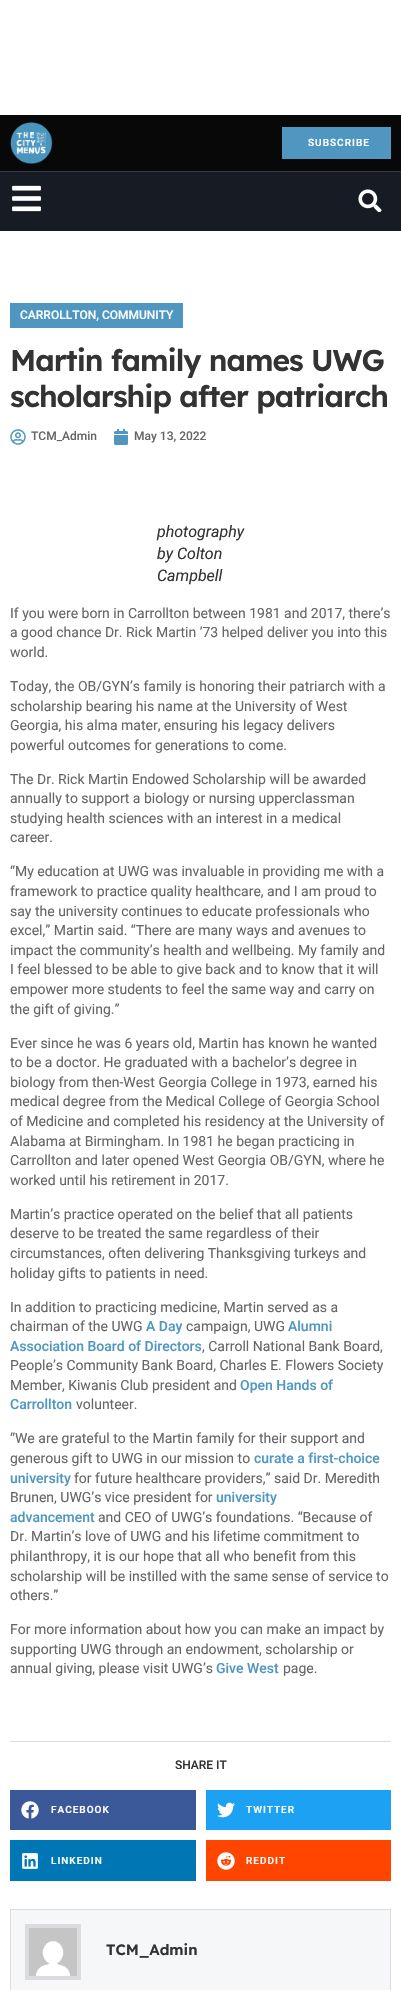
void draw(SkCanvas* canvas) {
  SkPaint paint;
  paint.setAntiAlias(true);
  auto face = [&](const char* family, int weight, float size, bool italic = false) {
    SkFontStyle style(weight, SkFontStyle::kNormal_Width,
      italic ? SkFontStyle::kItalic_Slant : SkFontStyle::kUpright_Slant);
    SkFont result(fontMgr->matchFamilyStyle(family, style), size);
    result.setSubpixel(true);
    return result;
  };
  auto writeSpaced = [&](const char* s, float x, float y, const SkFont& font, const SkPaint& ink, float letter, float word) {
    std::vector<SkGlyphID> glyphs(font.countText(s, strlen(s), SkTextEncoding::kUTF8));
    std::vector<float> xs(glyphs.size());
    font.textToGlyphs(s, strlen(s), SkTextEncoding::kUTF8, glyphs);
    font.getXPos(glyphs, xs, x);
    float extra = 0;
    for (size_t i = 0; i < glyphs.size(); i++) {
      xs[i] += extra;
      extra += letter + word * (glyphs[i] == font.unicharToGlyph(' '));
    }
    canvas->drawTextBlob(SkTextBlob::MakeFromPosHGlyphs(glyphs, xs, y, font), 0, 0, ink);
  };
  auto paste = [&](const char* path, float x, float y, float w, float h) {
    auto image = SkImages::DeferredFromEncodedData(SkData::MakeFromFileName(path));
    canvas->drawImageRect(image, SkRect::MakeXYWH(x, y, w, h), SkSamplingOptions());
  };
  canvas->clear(0xffffffff);
  paint.setColor(0xff080808);
  canvas->drawRect(SkRect::MakeXYWH(0, 115, 401, 56), paint);
  paste("img/1.png", 10, 122, 43, 42);
  {
    const struct { float x, y, w, h; SkColor color; } items[] = {
      {282, 127, 109, 32, 0xff4f97c0},
      {0, 172, 401, 59, 0xff171c24},
      {0, 171, 401, 1, 0xff313b4c},
    };
    for (auto [x, y, w, h, color] : items) {
      paint.setColor(color);
      canvas->drawRect(SkRect::MakeXYWH(x, y, w, h), paint);
    }
  }
  paste("img/2.png", 12, 185, 29, 27);
  paste("img/3.png", 358, 189, 24, 23);
  paint.setColor(0xff4f97c0);
  canvas->drawRect(SkRect::MakeXYWH(10, 303, 173, 25), paint);
  paste("img/4.png", 10, 429, 16, 16);
  paste("img/5.png", 114, 429, 14, 16);
  paint.setColor(0xffdcdcde);
  canvas->drawRect(SkRect::MakeXYWH(10, 1741, 381, 1), paint);
  paint.setColor(0xff3b5998);
  canvas->drawRect(SkRect::MakeXYWH(10, 1790, 186, 40), paint);
  paste("img/6.png", 21, 1801, 18, 18);
  paint.setColor(0xff1da1f2);
  canvas->drawRect(SkRect::MakeXYWH(206, 1790, 185, 40), paint);
  paste("img/7.png", 217, 1802, 18, 16);
  paint.setColor(0xff0077b5);
  canvas->drawRect(SkRect::MakeXYWH(10, 1840, 186, 41), paint);
  paste("img/8.png", 22, 1853, 16, 16);
  paint.setColor(0xffff4500);
  canvas->drawRect(SkRect::MakeXYWH(206, 1840, 185, 41), paint);
  paste("img/9.png", 217, 1852, 18, 18);
  paint.setColor(0xfff5f7f8);
  canvas->drawRect(SkRect::MakeXYWH(10.5f, 1909.5f, 380, 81), paint);
  paint.setStroke(true);
  paint.setStrokeWidth(1);
  paint.setColor(0xffdcdcde);
  canvas->drawRect(SkRect::MakeXYWH(10.5f, 1909.5f, 380, 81), paint);
  paint.setStrokeWidth(4);
  canvas->drawRect(SkRect::MakeXYWH(27, 1926, 52, 52), paint);
  paste("img/10.png", 29, 1928, 48, 48);
  auto f0 = face("Roboto", 600, 10);
  paint.setStroke(false);
  paint.setColor(0xffffffff);
  writeSpaced("SUBSCRIBE", 308, 146, f0, paint, 1, 0);
  auto f1 = face("Roboto", 500, 12);
  canvas->drawString("CARROLLTON, COMMUNITY", 20, 319, f1, paint);
  auto f2 = face("Lexend", 600, 30);
  paint.setColor(0xff333333);
  writeSpaced("Martin family names UWG", 10, 371, f2, paint, -1, 0);
  writeSpaced("scholarship after patriarch", 10, 407, f2, paint, -1, 0);
  paint.setColor(0xff666666);
  canvas->drawString("TCM_Admin", 31, 440, f1, paint);
  canvas->drawString("May 13, 2022", 134, 440, f1, paint);
  auto f3 = face("Roboto", 400, 16, true);
  paint.setColor(0xff333333);
  {
    const struct { const char* s; float x, y; } items[] = {
      {"photography", 157, 537},
      {"by Colton", 157, 559},
      {"Campbell", 157, 581},
    };
    for (auto [s, x, y] : items) {
      canvas->drawString(s, x, y, f3, paint);
    }
  }
  auto f4 = face("Roboto", 400, 14);
  paint.setColor(0xff666666);
  {
    const struct { const char* s; float x, y; } items[] = {
      {"If you were born in Carrollton between 1981 and 2017, there’s", 10, 618},
      {"a good chance Dr. Rick Martin ’73 helped deliver you into this", 10, 637},
      {"world.", 10, 657},
      {"Today, the OB/GYN’s family is honoring their patriarch with a", 10, 691},
      {"scholarship bearing his name at the University of West", 10, 711},
      {"Georgia, his alma mater, ensuring his legacy delivers", 10, 730},
      {"powerful outcomes for generations to come.", 10, 750},
      {"The Dr. Rick Martin Endowed Scholarship will be awarded", 10, 784},
      {"annually to support a biology or nursing upperclassman", 10, 803},
      {"studying health sciences with an interest in a medical", 10, 823},
      {"career.", 10, 842},
      {"“My education at UWG was invaluable in providing me with a", 10, 876},
      {"framework to practice quality healthcare, and I am proud to", 10, 896},
      {"say the university continues to educate professionals who", 10, 916},
      {"excel,” Martin said. “There are many ways and avenues to", 10, 935},
      {"impact the community’s health and wellbeing. My family and", 10, 955},
      {"I feel blessed to be able to give back and to know that it will", 10, 974},
      {"empower more students to feel the same way and carry on", 10, 994},
      {"the gift of giving.”", 10, 1014},
      {"Ever since he was 6 years old, Martin has known he wanted", 10, 1048},
      {"to be a doctor. He graduated with a bachelor’s degree in", 10, 1067},
      {"biology from then-West Georgia College in 1973, earned his", 10, 1087},
      {"medical degree from the Medical College of Georgia School", 10, 1106},
      {"of Medicine and completed his residency at the University of", 10, 1126},
      {"Alabama at Birmingham. In 1981 he began practicing in", 10, 1146},
      {"Carrollton and later opened West Georgia OB/GYN, where he", 10, 1165},
      {"worked until his retirement in 2017.", 10, 1185},
      {"Martin’s practice operated on the belief that all patients", 10, 1219},
      {"deserve to be treated the same regardless of their", 10, 1238},
      {"circumstances, often delivering Thanksgiving turkeys and", 10, 1258},
      {"holiday gifts to patients in need.", 10, 1278},
      {"In addition to practicing medicine, Martin served as a", 10, 1312},
      {"chairman of the UWG", 10, 1331},
    };
    for (auto [s, x, y] : items) {
      canvas->drawString(s, x, y, f4, paint);
    }
  }
  auto f5 = face("Roboto", 500, 14);
  paint.setColor(0xff4f97c0);
  canvas->drawString("A Day", 146, 1331, f5, paint);
  paint.setColor(0xff666666);
  canvas->drawString("campaign, UWG", 186, 1331, f4, paint);
  paint.setColor(0xff4f97c0);
  canvas->drawString("Alumni", 288, 1331, f5, paint);
  canvas->drawString("Association Board of Directors", 10, 1351, f5, paint);
  paint.setColor(0xff666666);
  {
    const struct { const char* s; float x, y; } items[] = {
      {", Carroll National Bank Board,", 202, 1351},
      {"People’s Community Bank Board, Charles E. Flowers Society", 10, 1370},
      {"Member, Kiwanis Club president and", 10, 1390},
    };
    for (auto [s, x, y] : items) {
      canvas->drawString(s, x, y, f4, paint);
    }
  }
  paint.setColor(0xff4f97c0);
  canvas->drawString("Open Hands of", 240, 1390, f5, paint);
  canvas->drawString("Carrollton", 10, 1409, f5, paint);
  paint.setColor(0xff666666);
  {
    const struct { const char* s; float x, y; } items[] = {
      {"volunteer.", 76, 1409},
      {"“We are grateful to the Martin family for their support and", 10, 1443},
      {"generous gift to UWG in our mission to", 10, 1463},
    };
    for (auto [s, x, y] : items) {
      canvas->drawString(s, x, y, f4, paint);
    }
  }
  paint.setColor(0xff4f97c0);
  canvas->drawString("curate a first-choice", 254, 1463, f5, paint);
  canvas->drawString("university", 10, 1483, f5, paint);
  paint.setColor(0xff666666);
  canvas->drawString("for future healthcare providers,” said Dr. Meredith", 74, 1483, f4, paint);
  canvas->drawString("Brunen, UWG’s vice president for", 10, 1502, f4, paint);
  paint.setColor(0xff4f97c0);
  canvas->drawString("university", 216, 1502, f5, paint);
  canvas->drawString("advancement", 10, 1522, f5, paint);
  paint.setColor(0xff666666);
  {
    const struct { const char* s; float x, y; } items[] = {
      {"and CEO of UWG’s foundations. “Because of", 98, 1522},
      {"Dr. Martin’s love of UWG and his lifetime commitment to", 10, 1541},
      {"philanthropy, it is our hope that all who benefit from this", 10, 1561},
      {"scholarship will be instilled with the same sense of service to", 10, 1581},
      {"others.”", 10, 1600},
      {"For more information about how you can make an impact by", 10, 1634},
      {"supporting UWG through an endowment, scholarship or", 10, 1654},
      {"annual giving, please visit UWG’s", 10, 1673},
    };
    for (auto [s, x, y] : items) {
      canvas->drawString(s, x, y, f4, paint);
    }
  }
  paint.setColor(0xff4f97c0);
  canvas->drawString("Give West", 216, 1673, f5, paint);
  paint.setColor(0xff666666);
  canvas->drawString("page.", 283, 1673, f4, paint);
  paint.setColor(0xff333333);
  canvas->drawString("SHARE IT", 175, 1769, f1, paint);
  paint.setColor(0xffffffff);
  {
    const struct { const char* s; float x, y; } items[] = {
      {"FACEBOOK", 51, 1813},
      {"TWITTER", 246, 1813},
      {"LINKEDIN", 51, 1864},
      {"REDDIT", 246, 1864},
    };
    for (auto [s, x, y] : items) {
      writeSpaced(s, x, y, f0, paint, 1, 0);
    }
  }
  auto f6 = face("Lexend", 600, 15);
  paint.setColor(0xff333333);
  canvas->drawString("TCM_Admin", 106, 1955, f6, paint);
}
